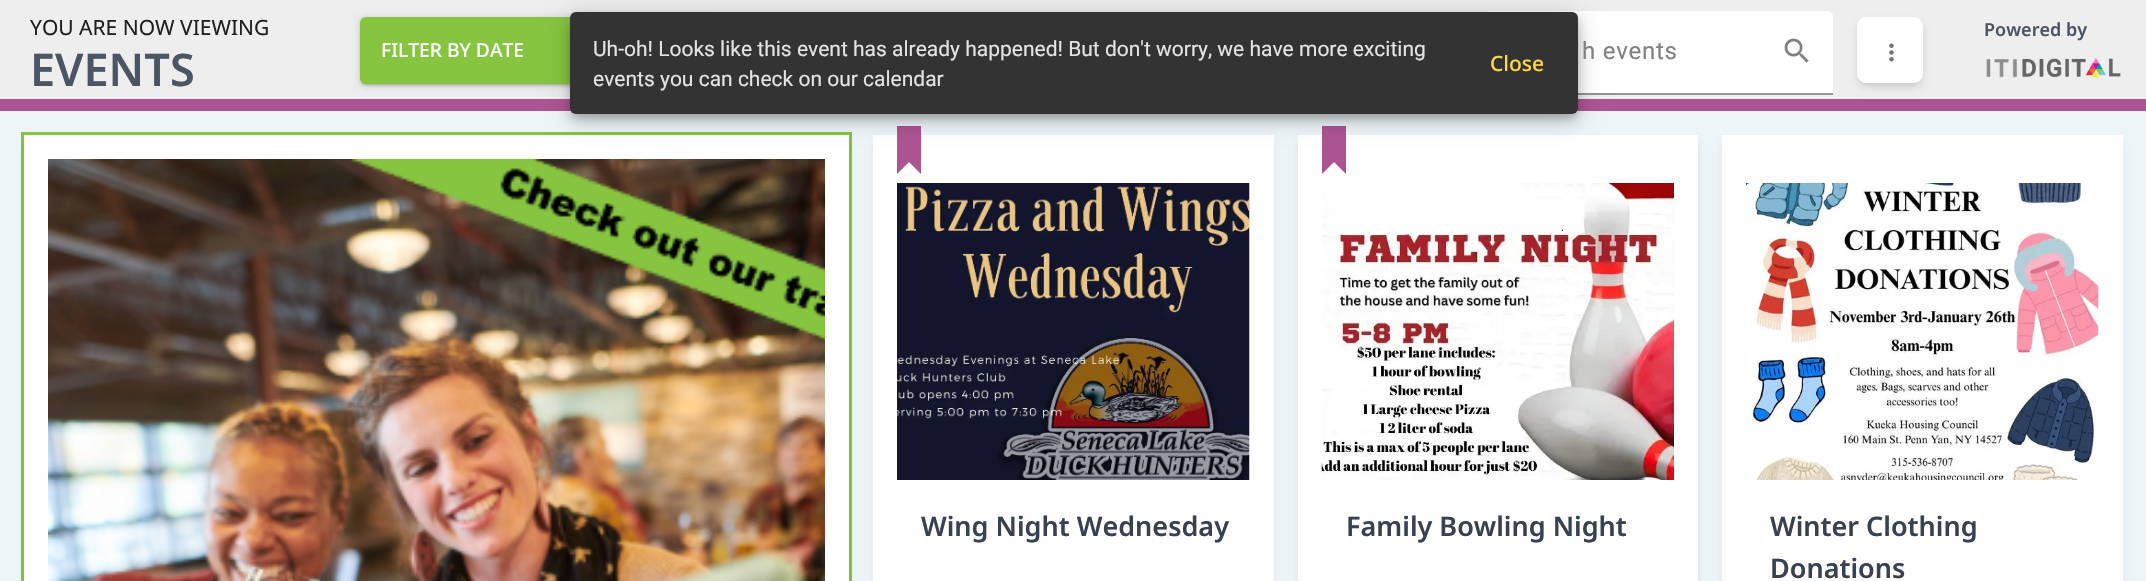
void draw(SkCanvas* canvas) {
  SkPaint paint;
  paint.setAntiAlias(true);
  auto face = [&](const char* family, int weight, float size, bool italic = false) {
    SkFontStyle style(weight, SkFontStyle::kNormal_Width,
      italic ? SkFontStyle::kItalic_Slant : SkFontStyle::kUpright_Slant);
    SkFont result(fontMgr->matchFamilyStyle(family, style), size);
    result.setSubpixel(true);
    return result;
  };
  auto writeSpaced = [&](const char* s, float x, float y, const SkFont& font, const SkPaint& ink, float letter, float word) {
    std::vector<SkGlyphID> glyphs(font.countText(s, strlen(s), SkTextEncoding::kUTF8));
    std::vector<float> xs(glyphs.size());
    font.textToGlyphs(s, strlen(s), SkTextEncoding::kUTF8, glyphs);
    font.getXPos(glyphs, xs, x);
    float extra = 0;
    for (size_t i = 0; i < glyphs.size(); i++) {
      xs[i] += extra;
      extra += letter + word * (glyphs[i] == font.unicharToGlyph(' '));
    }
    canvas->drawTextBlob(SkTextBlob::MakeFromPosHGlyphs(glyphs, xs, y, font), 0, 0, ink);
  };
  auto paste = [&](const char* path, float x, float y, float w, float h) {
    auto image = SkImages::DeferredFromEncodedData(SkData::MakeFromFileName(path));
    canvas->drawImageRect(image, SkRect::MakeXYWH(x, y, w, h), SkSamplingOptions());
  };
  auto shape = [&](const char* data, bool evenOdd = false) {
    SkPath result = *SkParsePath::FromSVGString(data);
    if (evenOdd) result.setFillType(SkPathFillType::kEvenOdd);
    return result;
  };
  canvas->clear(0xffac5492);
  paint.setColor(0xffeeeeee);
  canvas->drawRect(SkRect::MakeXYWH(0, 0, 2146, 99), paint);
  paint.setColor(0x1a000000);
  paint.setMaskFilter(SkMaskFilter::MakeBlur(kNormal_SkBlurStyle, 3));
  canvas->drawRoundRect(SkRect::MakeXYWH(1860, 23, 60, 60), 6, 6, paint);
  paint.setMaskFilter(nullptr);
  paint.setMaskFilter(SkMaskFilter::MakeBlur(kNormal_SkBlurStyle, 4.5f));
  canvas->drawRoundRect(SkRect::MakeXYWH(1859, 24, 63, 63), 8, 8, paint);
  paint.setMaskFilter(nullptr);
  paint.setColor(0xffffffff);
  canvas->drawRoundRect(SkRect::MakeXYWH(1857, 17, 66, 66), 9, 9, paint);
  paste("img/1.png", 1889, 43, 5, 19);
  paste("img/2.png", 1986, 57, 135, 21);
  paint.setColor(0x1f000000);
  paint.setMaskFilter(SkMaskFilter::MakeBlur(kNormal_SkBlurStyle, 4));
  canvas->drawRoundRect(SkRect::MakeXYWH(360, 18, 351, 68), 6, 6, paint);
  paint.setMaskFilter(nullptr);
  paint.setColor(0x24000000);
  paint.setMaskFilter(SkMaskFilter::MakeBlur(kNormal_SkBlurStyle, 1.5f));
  canvas->drawRoundRect(SkRect::MakeXYWH(360, 18, 351, 68), 6, 6, paint);
  paint.setMaskFilter(nullptr);
  paint.setColor(0x33000000);
  paint.setMaskFilter(SkMaskFilter::MakeBlur(kNormal_SkBlurStyle, 1));
  canvas->drawRoundRect(SkRect::MakeXYWH(363, 23, 345, 61), 3, 3, paint);
  paint.setMaskFilter(nullptr);
  paint.setColor(0xff87c440);
  canvas->drawRoundRect(SkRect::MakeXYWH(360, 17, 351, 67), 6, 6, paint);
  paint.setColor(0xffffffff);
  canvas->drawPath(shape("M1490 11H1827C1830.5 11 1833 13.5 1833 17V95H1484V17C1484 13.5 1486.5 11 1490 11Z"), paint);
  paste("img/3.png", 1784, 38, 25, 25);
  paint.setColor(0xff949494);
  canvas->drawRect(SkRect::MakeXYWH(1578, 93, 255, 2), paint);
  paint.setColor(0xffeef5f9);
  canvas->drawRect(SkRect::MakeXYWH(0, 111, 2146, 470), paint);
  paint.setStroke(true);
  paint.setStrokeWidth(3);
  paint.setColor(0xff87c440);
  canvas->drawRect(SkRect::MakeXYWH(22.5f, 133.5f, 828, 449), paint);
  paint.setStroke(false);
  paint.setColor(0x1a000000);
  paint.setMaskFilter(SkMaskFilter::MakeBlur(kNormal_SkBlurStyle, 4.5f));
  canvas->drawRect(SkRect::MakeXYWH(26, 143, 822, 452), paint);
  paint.setMaskFilter(nullptr);
  paint.setColor(0xffffffff);
  canvas->drawRect(SkRect::MakeXYWH(24, 135, 825, 446), paint);
  paste("img/4.png", 48, 159, 777, 422);
  paint.setColor(0x1a000000);
  paint.setMaskFilter(SkMaskFilter::MakeBlur(kNormal_SkBlurStyle, 4.5f));
  canvas->drawRect(SkRect::MakeXYWH(875, 143, 397, 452), paint);
  paint.setMaskFilter(nullptr);
  paint.setColor(0xffffffff);
  canvas->drawRect(SkRect::MakeXYWH(873, 135, 401, 446), paint);
  paint.setColor(0xffac5492);
  canvas->drawRect(SkRect::MakeXYWH(897, 126, 24, 12), paint);
  canvas->drawPath(shape("M921 126V174L909 162V138ZM897 174V126L909 138V162Z"), paint);
  paste("img/5.png", 897, 183, 353, 297);
  paint.setColor(0x1a000000);
  paint.setMaskFilter(SkMaskFilter::MakeBlur(kNormal_SkBlurStyle, 4.5f));
  canvas->drawRect(SkRect::MakeXYWH(1299, 143, 398, 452), paint);
  paint.setMaskFilter(nullptr);
  paint.setColor(0xffffffff);
  canvas->drawRect(SkRect::MakeXYWH(1298, 135, 400, 446), paint);
  paint.setColor(0xffac5492);
  canvas->drawRect(SkRect::MakeXYWH(1322, 126, 24, 12), paint);
  canvas->drawPath(shape("M1346 126V174L1334 162V138ZM1322 174V126L1334 138V162Z"), paint);
  paste("img/6.png", 1321, 183, 353, 297);
  paint.setColor(0x1a000000);
  paint.setMaskFilter(SkMaskFilter::MakeBlur(kNormal_SkBlurStyle, 4.5f));
  canvas->drawRect(SkRect::MakeXYWH(1724, 143, 397, 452), paint);
  paint.setMaskFilter(nullptr);
  paint.setColor(0xffffffff);
  canvas->drawRect(SkRect::MakeXYWH(1722, 135, 401, 446), paint);
  paste("img/7.png", 1746, 183, 353, 297);
  paint.setColor(0x1f000000);
  paint.setMaskFilter(SkMaskFilter::MakeBlur(kNormal_SkBlurStyle, 13.5f));
  canvas->drawRoundRect(SkRect::MakeXYWH(570, 14, 1008, 102), 6, 6, paint);
  paint.setMaskFilter(nullptr);
  paint.setColor(0x24000000);
  paint.setMaskFilter(SkMaskFilter::MakeBlur(kNormal_SkBlurStyle, 7.5f));
  canvas->drawRoundRect(SkRect::MakeXYWH(570, 21, 1008, 102), 6, 6, paint);
  paint.setMaskFilter(nullptr);
  paint.setColor(0x33000000);
  paint.setMaskFilter(SkMaskFilter::MakeBlur(kNormal_SkBlurStyle, 4));
  canvas->drawRoundRect(SkRect::MakeXYWH(572, 18, 1005, 99), 5, 5, paint);
  paint.setMaskFilter(nullptr);
  paint.setColor(0xff333333);
  canvas->drawRoundRect(SkRect::MakeXYWH(570, 12, 1008, 102), 6, 6, paint);
  auto f0 = face("Noto Sans", 400, 21);
  paint.setColor(0xff1f1f1f);
  canvas->drawString("YOU ARE NOW VIEWING", 30, 35, f0, paint);
  auto f1 = face("Noto Sans", 600, 45);
  paint.setColor(0xff4b5563);
  canvas->drawString("EVENTS", 30, 86, f1, paint);
  auto f2 = face("Noto Sans", 600, 18);
  canvas->drawString("Powered by", 1984, 36, f2, paint);
  auto f3 = face("Noto Sans", 500, 19.25f);
  paint.setColor(0xffffffff);
  canvas->drawString("FILTER BY DATE", 381, 57, f3, paint);
  auto f4 = face("Roboto", 400, 24);
  paint.setColor(0xff808080);
  writeSpaced("h events", 1582, 59, f4, paint, 0.75f, 0);
  auto f5 = face("Noto Sans", 600, 27);
  paint.setColor(0xff374151);
  {
    const struct { const char* s; float x, y; } items[] = {
      {"Wing Night Wednesday", 921, 536},
      {"Family Bowling Night", 1346, 536},
      {"Winter Clothing", 1770, 536},
      {"Donations", 1770, 578},
    };
    for (auto [s, x, y] : items) {
      canvas->drawString(s, x, y, f5, paint);
    }
  }
  auto f6 = face("Roboto", 400, 21);
  paint.setColor(0xffe4e4e4);
  canvas->drawString("Uh-oh! Looks like this event has already happened! But don't worry, we have more exciting", 593, 56, f6, paint);
  canvas->drawString("events you can check on our calendar", 593, 86, f6, paint);
  auto f7 = face("Noto Sans", 500, 21);
  paint.setColor(0xffffd740);
  canvas->drawString("Close", 1490, 71, f7, paint);
}
